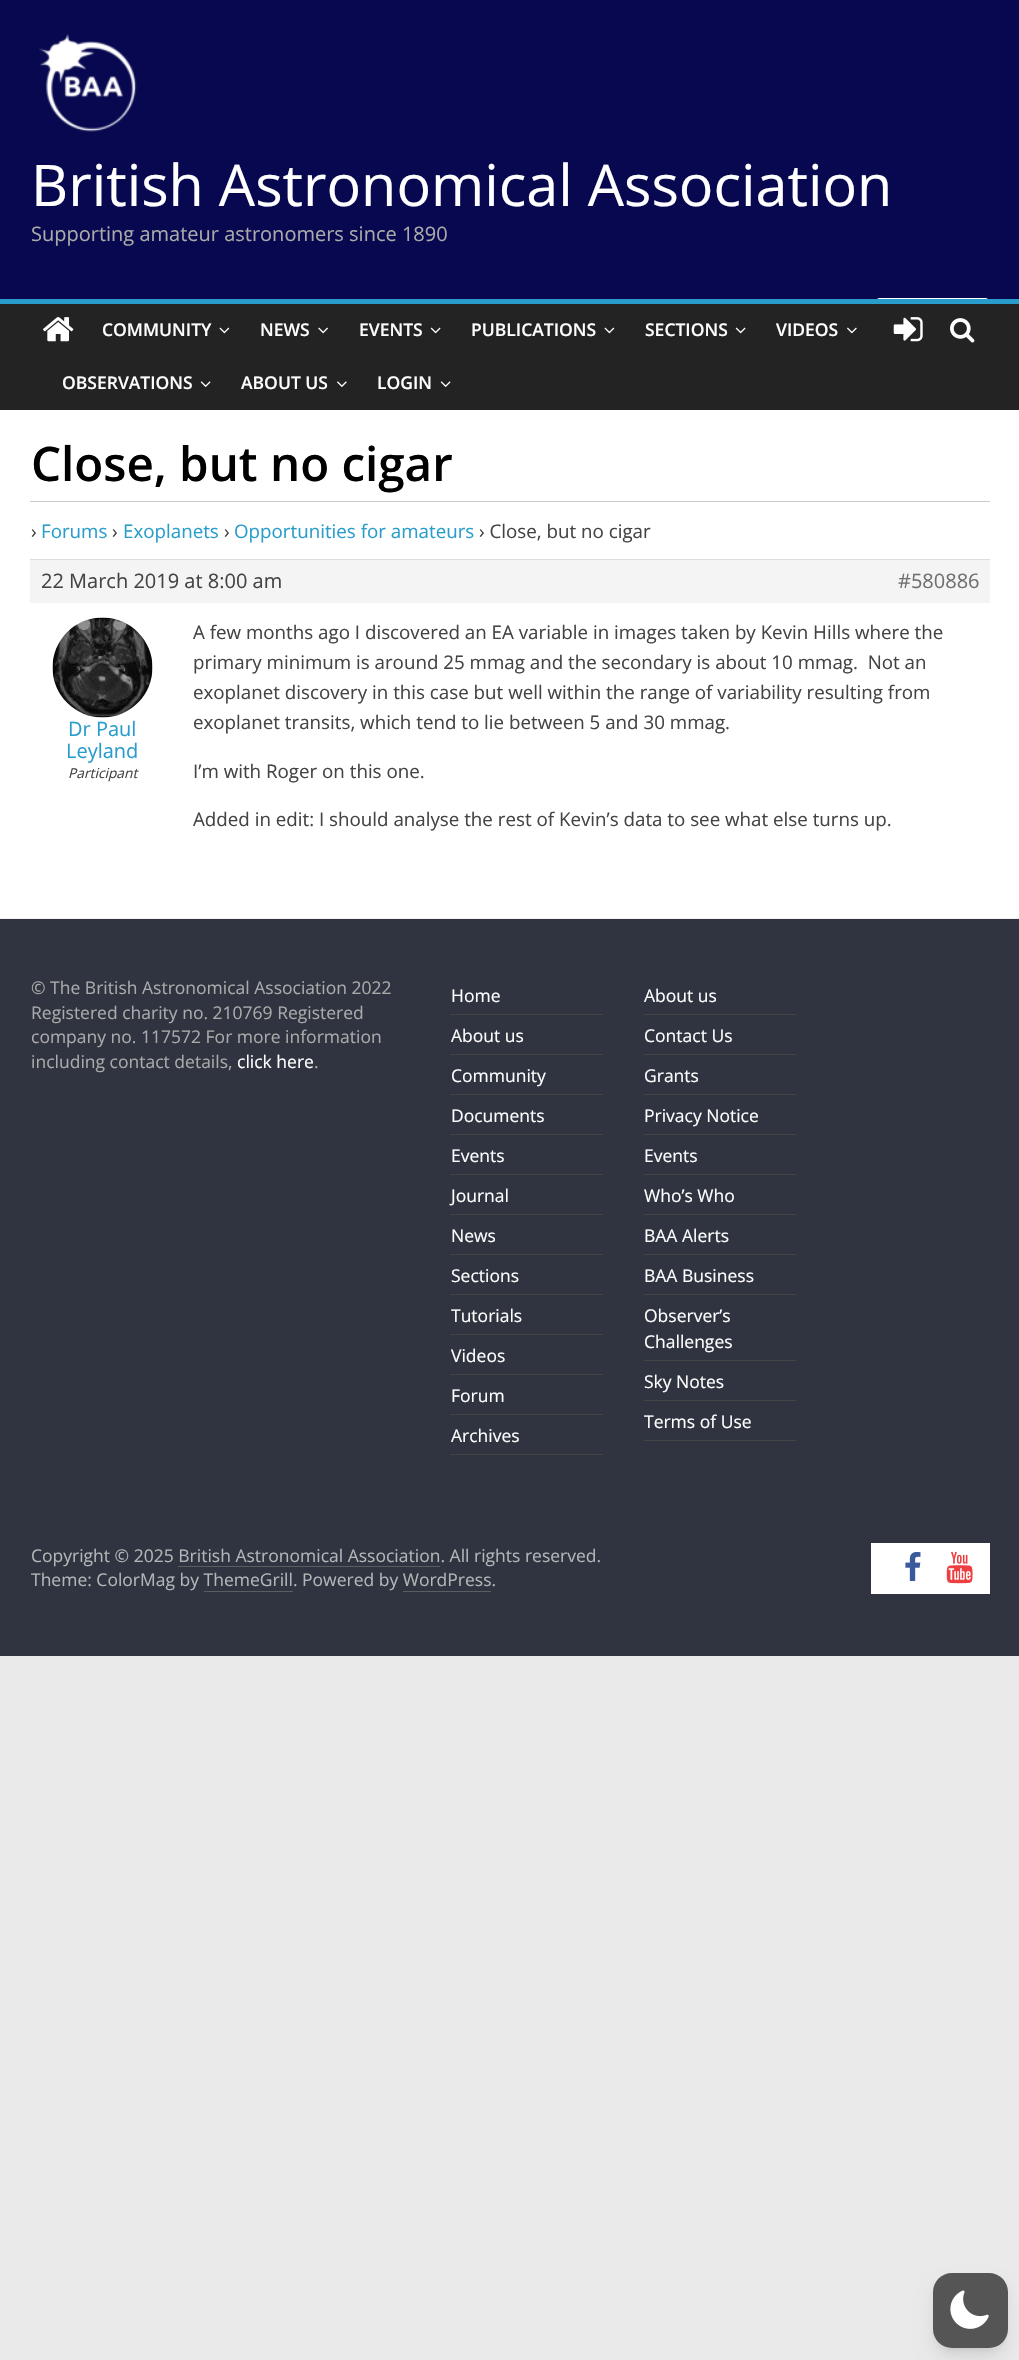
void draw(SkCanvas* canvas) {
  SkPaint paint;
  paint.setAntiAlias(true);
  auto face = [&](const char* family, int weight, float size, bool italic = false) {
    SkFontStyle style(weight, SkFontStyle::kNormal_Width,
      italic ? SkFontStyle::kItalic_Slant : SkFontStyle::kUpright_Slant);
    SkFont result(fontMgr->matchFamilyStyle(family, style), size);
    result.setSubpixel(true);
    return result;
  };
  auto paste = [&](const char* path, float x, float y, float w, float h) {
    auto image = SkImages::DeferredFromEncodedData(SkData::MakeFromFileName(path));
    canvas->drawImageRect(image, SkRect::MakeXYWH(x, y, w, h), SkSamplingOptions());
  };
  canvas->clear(0xffeaeaea);
  paint.setColor(0xff080850);
  canvas->drawRect(SkRect::MakeXYWH(0, 0, 1019, 299), paint);
  paste("img/1.png", 39, 34, 98, 98);
  paint.setColor(0xffffffff);
  canvas->drawRoundRect(SkRect::MakeXYWH(875, 298, 115, 42), 5, 5, paint);
  paint.setColor(0xff232323);
  canvas->drawRect(SkRect::MakeXYWH(0, 304, 1019, 106), paint);
  paint.setColor(0xff289dcc);
  canvas->drawRect(SkRect::MakeXYWH(0, 299, 1019, 5), paint);
  paste("img/2.png", 43, 317, 31, 25);
  paste("img/3.png", 219, 327, 11, 7);
  paste("img/4.png", 318, 327, 10, 7);
  paste("img/5.png", 430, 327, 11, 7);
  paste("img/3.png", 604, 327, 11, 7);
  paste("img/5.png", 735, 327, 11, 7);
  paste("img/6.png", 847, 327, 10, 7);
  paste("img/7.png", 200, 381, 11, 6);
  paste("img/8.png", 337, 381, 10, 6);
  paste("img/7.png", 440, 381, 11, 6);
  paste("img/9.png", 893, 317, 30, 25);
  paste("img/10.png", 950, 318, 25, 25);
  {
    const struct { float x, y, w, h; SkColor color; } items[] = {
      {0, 410, 1019, 508, 0xffffffff},
      {30, 501, 960, 1, 0xffcccccc},
      {30, 560, 960, 43, 0xfff4f4f4},
      {30, 559, 960, 1, 0xffdddddd},
    };
    for (auto [x, y, w, h, color] : items) {
      paint.setColor(color);
      canvas->drawRect(SkRect::MakeXYWH(x, y, w, h), paint);
    }
  }
  paste("img/11.png", 52, 617, 101, 101);
  {
    const struct { float x, y, w, h; SkColor color; } items[] = {
      {0, 919, 1019, 737, 0xff303440},
      {0, 918, 1019, 1, 0xfff2f2f2},
      {450, 1014, 153, 1, 0xff444444},
      {450, 1054, 153, 1, 0xff444444},
      {450, 1094, 153, 1, 0xff444444},
      {450, 1134, 153, 1, 0xff444444},
      {450, 1174, 153, 1, 0xff444444},
      {450, 1214, 153, 1, 0xff444444},
      {450, 1254, 153, 1, 0xff444444},
      {450, 1294, 153, 1, 0xff444444},
      {450, 1334, 153, 1, 0xff444444},
      {450, 1374, 153, 1, 0xff444444},
      {450, 1414, 153, 1, 0xff444444},
      {450, 1454, 153, 1, 0xff444444},
      {644, 1014, 152, 1, 0xff444444},
      {644, 1054, 152, 1, 0xff444444},
      {644, 1094, 152, 1, 0xff444444},
      {644, 1134, 152, 1, 0xff444444},
      {644, 1174, 152, 1, 0xff444444},
      {644, 1214, 152, 1, 0xff444444},
      {644, 1254, 152, 1, 0xff444444},
      {644, 1294, 152, 1, 0xff444444},
      {644, 1360, 152, 1, 0xff444444},
      {644, 1400, 152, 1, 0xff444444},
      {644, 1440, 152, 1, 0xff444444},
      {204, 1591, 89, 1, 0xff5a5d62},
      {403, 1591, 88, 1, 0xff5a5d62},
      {871, 1543, 119, 51, 0xffffffff},
    };
    for (auto [x, y, w, h, color] : items) {
      paint.setColor(color);
      canvas->drawRect(SkRect::MakeXYWH(x, y, w, h), paint);
    }
  }
  paste("img/12.png", 905, 1552, 16, 29);
  paste("img/13.png", 946, 1551, 27, 33);
  paint.setColor(0x1a000000);
  paint.setMaskFilter(SkMaskFilter::MakeBlur(kNormal_SkBlurStyle, 4));
  canvas->drawRoundRect(SkRect::MakeXYWH(938, 2283, 65, 65), 14, 14, paint);
  paint.setMaskFilter(nullptr);
  paint.setMaskFilter(SkMaskFilter::MakeBlur(kNormal_SkBlurStyle, 9.5f));
  canvas->drawRoundRect(SkRect::MakeXYWH(936, 2289, 68, 67), 15, 15, paint);
  paint.setMaskFilter(nullptr);
  paint.setColor(0xff555555);
  canvas->drawRoundRect(SkRect::MakeXYWH(933, 2273, 75, 75), 19, 19, paint);
  paste("img/14.png", 950, 2290, 39, 39);
  auto f0 = face("Open Sans", 400, 57.5f);
  paint.setColor(0xffffffff);
  canvas->drawString("British Astronomical Association", 31, 206, f0, paint);
  auto f1 = face("Open Sans", 400, 20);
  paint.setColor(0xffaaaaaa);
  canvas->drawString("Supporting amateur astronomers since 1890", 31, 241, f1, paint);
  auto f2 = face("Open Sans", 600, 17.5f);
  paint.setColor(0xffffffff);
  {
    const struct { const char* s; float x, y; } items[] = {
      {"COMMUNITY", 102, 336},
      {"NEWS", 260, 336},
      {"EVENTS", 359, 336},
      {"PUBLICATIONS", 471, 336},
      {"SECTIONS", 645, 336},
      {"VIDEOS", 776, 336},
      {"OBSERVATIONS", 62, 389},
      {"ABOUT US", 241, 389},
      {"LOGIN", 377, 389},
    };
    for (auto [s, x, y] : items) {
      canvas->drawString(s, x, y, f2, paint);
    }
  }
  auto f3 = face("Open Sans", 600, 47.5f);
  paint.setColor(0xff000000);
  canvas->drawString("Close, but no cigar", 31, 481, f3, paint);
  auto f4 = face("Open Sans", 400, 18.75f);
  paint.setColor(0xff444444);
  canvas->drawString("›", 31, 538, f4, paint);
  paint.setColor(0xff289dcc);
  canvas->drawString("Forums", 41, 538, f4, paint);
  paint.setColor(0xff444444);
  canvas->drawString("›", 112, 538, f4, paint);
  paint.setColor(0xff289dcc);
  canvas->drawString("Exoplanets", 123, 538, f4, paint);
  paint.setColor(0xff444444);
  canvas->drawString("›", 224, 538, f4, paint);
  paint.setColor(0xff289dcc);
  canvas->drawString("Opportunities for amateurs", 234, 538, f4, paint);
  paint.setColor(0xff444444);
  canvas->drawString("› Close, but no cigar", 479, 538, f4, paint);
  canvas->drawString("22 March 2019 at 8:00 am", 41, 588, f1, paint);
  paint.setColor(0xff707070);
  canvas->drawString("#580886", 898, 588, f1, paint);
  paint.setColor(0xff289dcc);
  canvas->drawString("Dr Paul", 68, 736, f1, paint);
  canvas->drawString("Leyland", 66, 758, f1, paint);
  auto f5 = face("Open Sans", 400, 13.75f, true);
  paint.setColor(0xff444444);
  canvas->drawString("Participant", 68, 778, f5, paint);
  {
    const struct { const char* s; float x, y; } items[] = {
      {"A few months ago I discovered an EA variable in images taken by Kevin Hills where the", 193, 639},
      {"primary minimum is around 25 mmag and the secondary is about 10 mmag.  Not an", 193, 669},
      {"exoplanet discovery in this case but well within the range of variability resulting from", 193, 699},
      {"exoplanet transits, which tend to lie between 5 and 30 mmag.", 193, 729},
      {"I’m with Roger on this one.", 193, 778},
      {"Added in edit: I should analyse the rest of Kevin’s data to see what else turns up.", 193, 826},
    };
    for (auto [s, x, y] : items) {
      canvas->drawString(s, x, y, f4, paint);
    }
  }
  auto f6 = face("Open Sans", 400, 17.5f);
  paint.setColor(0xffaaaaaa);
  {
    const struct { const char* s; float x, y; } items[] = {
      {"© The British Astronomical Association 2022", 31, 994},
      {"Registered charity no. 210769 Registered", 31, 1019},
      {"company no. 117572 For more information", 31, 1043},
      {"including contact details,", 31, 1068},
    };
    for (auto [s, x, y] : items) {
      canvas->drawString(s, x, y, f6, paint);
    }
  }
  paint.setColor(0xffffffff);
  canvas->drawString("click here", 237, 1068, f6, paint);
  paint.setColor(0xffaaaaaa);
  canvas->drawString(".", 314, 1068, f6, paint);
  paint.setColor(0xffffffff);
  {
    const struct { const char* s; float x, y; } items[] = {
      {"Home", 451, 1002},
      {"About us", 451, 1042},
      {"Community", 451, 1082},
      {"Documents", 451, 1122},
      {"Events", 451, 1162},
      {"Journal", 451, 1202},
      {"News", 451, 1242},
      {"Sections", 451, 1282},
      {"Tutorials", 451, 1322},
      {"Videos", 451, 1362},
      {"Forum", 451, 1402},
      {"Archives", 451, 1442},
      {"About us", 644, 1002},
      {"Contact Us", 644, 1042},
      {"Grants", 644, 1082},
      {"Privacy Notice", 644, 1122},
      {"Events", 644, 1162},
      {"Who’s Who", 644, 1202},
      {"BAA Alerts", 644, 1242},
      {"BAA Business", 644, 1282},
      {"Observer’s", 644, 1322},
      {"Challenges", 644, 1348},
      {"Sky Notes", 644, 1388},
      {"Terms of Use", 644, 1428},
    };
    for (auto [s, x, y] : items) {
      canvas->drawString(s, x, y, f6, paint);
    }
  }
  paint.setColor(0xffb1b6b6);
  canvas->drawString("Copyright © 2025 British Astronomical Association. All rights reserved.", 31, 1562, f6, paint);
  paint.setColor(0xff5a5d62);
  canvas->drawRect(SkRect::MakeXYWH(178, 1566, 262, 1), paint);
  paint.setColor(0xffb1b6b6);
  canvas->drawString("Theme: ColorMag by ThemeGrill. Powered by WordPress.", 31, 1586, f6, paint);
}
